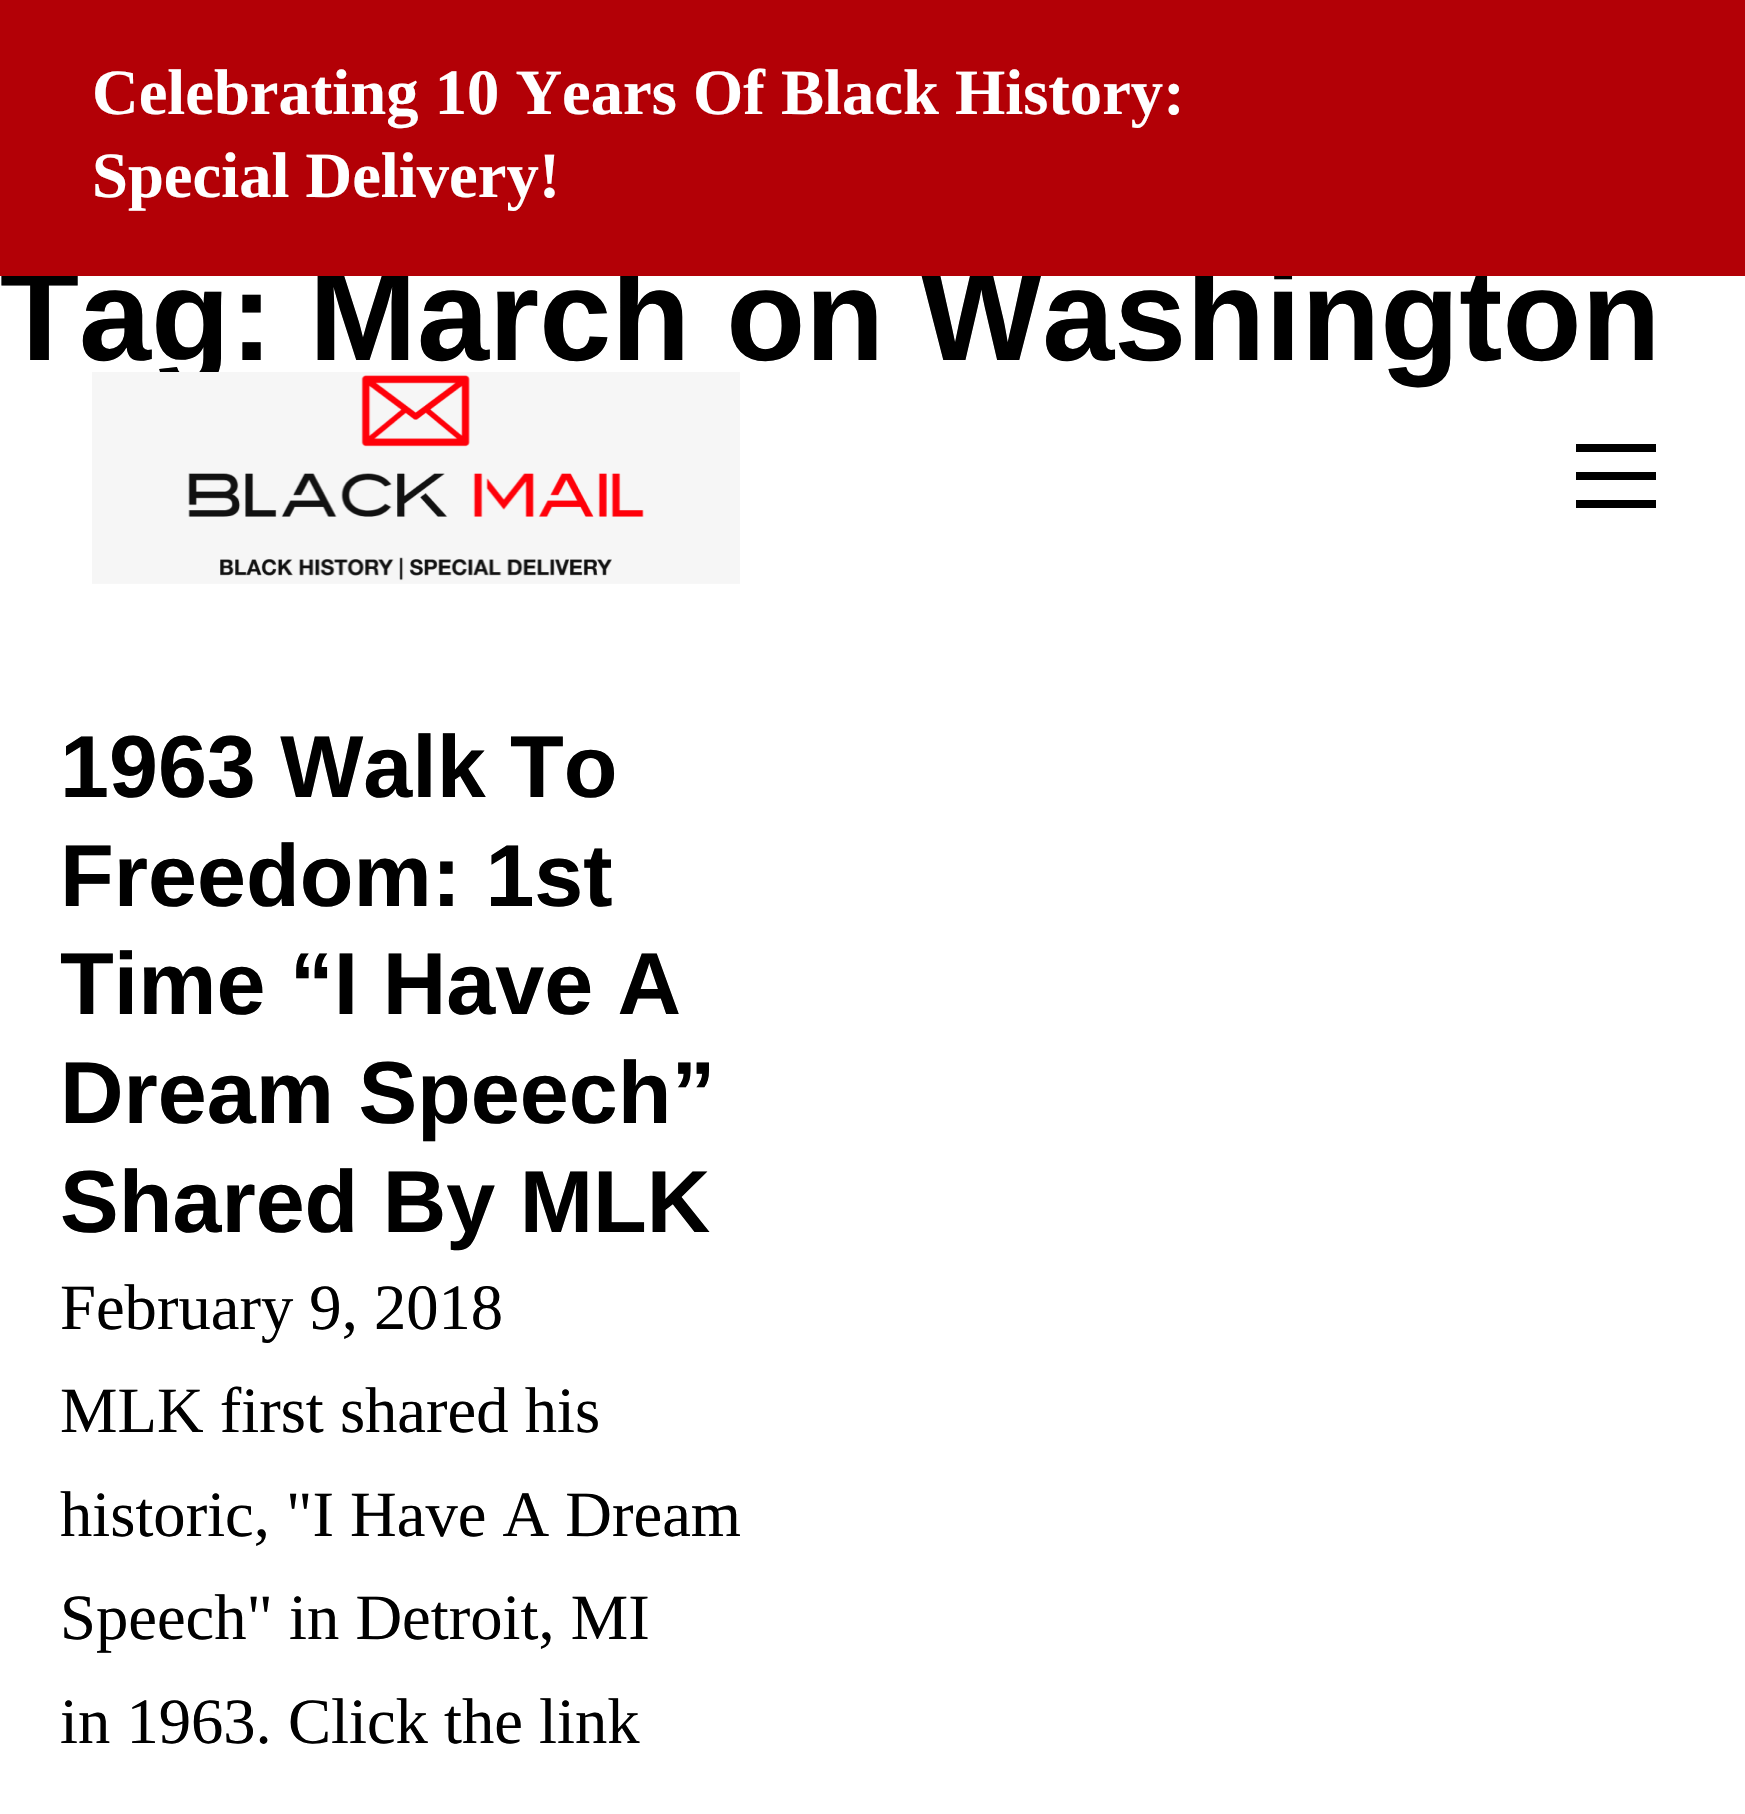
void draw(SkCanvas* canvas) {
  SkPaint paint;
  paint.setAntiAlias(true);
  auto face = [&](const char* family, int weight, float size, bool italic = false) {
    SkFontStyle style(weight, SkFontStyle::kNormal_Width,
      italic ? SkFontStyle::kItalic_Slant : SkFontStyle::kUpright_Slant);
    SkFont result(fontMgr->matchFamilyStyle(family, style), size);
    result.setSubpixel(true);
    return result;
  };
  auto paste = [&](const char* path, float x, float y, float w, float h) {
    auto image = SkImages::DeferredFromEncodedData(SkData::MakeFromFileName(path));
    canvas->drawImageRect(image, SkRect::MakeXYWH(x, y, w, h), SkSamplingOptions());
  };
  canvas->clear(0xffffffff);
  {
    const struct { float x, y, w, h; SkColor color; } items[] = {
      {1576, 444, 80, 8, 0xff000000},
      {1576, 472, 80, 8, 0xff000000},
      {1576, 500, 80, 8, 0xff000000},
    };
    for (auto [x, y, w, h, color] : items) {
      paint.setColor(color);
      canvas->drawRect(SkRect::MakeXYWH(x, y, w, h), paint);
    }
  }
  auto f0 = face("Liberation Sans", 700, 129.4f);
  canvas->drawString("Tag: March on Washington", 0, 360, f0, paint);
  paste("img/1.png", 92, 372, 648, 212);
  paint.setColor(0xffb30006);
  canvas->drawRect(SkRect::MakeXYWH(0, 0, 1745, 276), paint);
  auto f1 = face("Liberation Serif", 700, 64.6f);
  paint.setColor(0xffffffff);
  canvas->drawString("Special Delivery!", 92, 197, f1, paint);
  canvas->drawString("Celebrating 10 Years Of Black History:", 92, 114, f1, paint);
  auto f2 = face("Liberation Sans", 700, 88);
  paint.setColor(0xff000000);
  {
    const struct { const char* s; float x, y; } items[] = {
      {"1963 Walk To", 60, 797},
      {"Freedom: 1st", 60, 906},
      {"Time “I Have A", 60, 1014},
      {"Dream Speech”", 60, 1123},
      {"Shared By MLK", 60, 1232},
    };
    for (auto [s, x, y] : items) {
      canvas->drawString(s, x, y, f2, paint);
    }
  }
  auto f3 = face("Liberation Serif", 400, 64.6f);
  {
    const struct { const char* s; float x, y; } items[] = {
      {"February 9, 2018", 60, 1329},
      {"MLK first shared his", 60, 1432},
      {"historic, \"I Have A Dream", 60, 1536},
      {"Speech\" in Detroit, MI", 60, 1639},
      {"in 1963. Click the link", 60, 1743},
    };
    for (auto [s, x, y] : items) {
      canvas->drawString(s, x, y, f3, paint);
    }
  }
}
